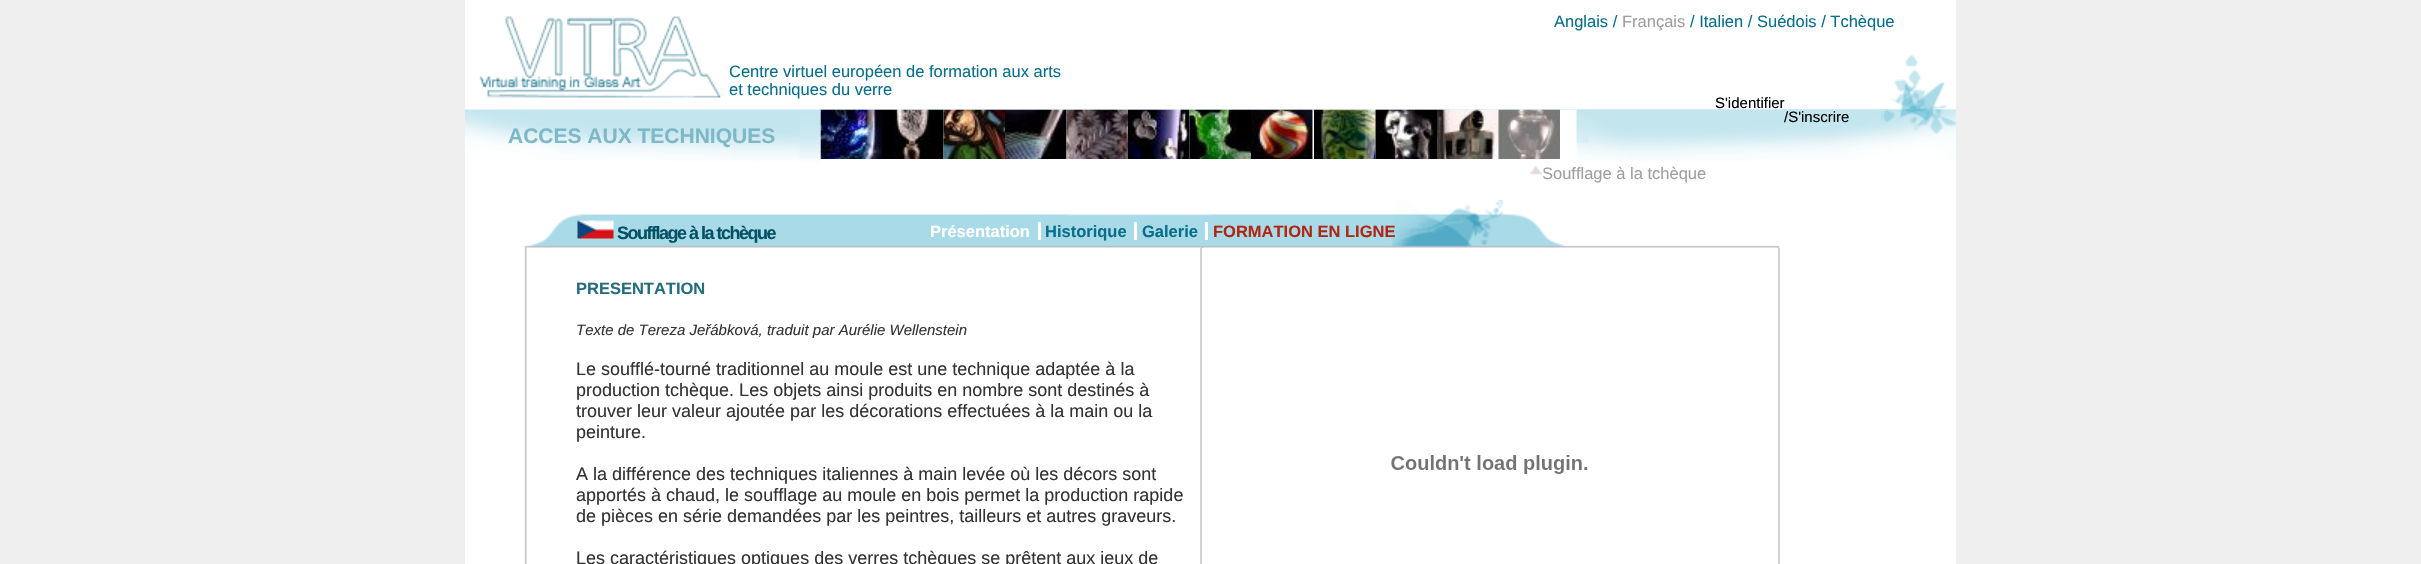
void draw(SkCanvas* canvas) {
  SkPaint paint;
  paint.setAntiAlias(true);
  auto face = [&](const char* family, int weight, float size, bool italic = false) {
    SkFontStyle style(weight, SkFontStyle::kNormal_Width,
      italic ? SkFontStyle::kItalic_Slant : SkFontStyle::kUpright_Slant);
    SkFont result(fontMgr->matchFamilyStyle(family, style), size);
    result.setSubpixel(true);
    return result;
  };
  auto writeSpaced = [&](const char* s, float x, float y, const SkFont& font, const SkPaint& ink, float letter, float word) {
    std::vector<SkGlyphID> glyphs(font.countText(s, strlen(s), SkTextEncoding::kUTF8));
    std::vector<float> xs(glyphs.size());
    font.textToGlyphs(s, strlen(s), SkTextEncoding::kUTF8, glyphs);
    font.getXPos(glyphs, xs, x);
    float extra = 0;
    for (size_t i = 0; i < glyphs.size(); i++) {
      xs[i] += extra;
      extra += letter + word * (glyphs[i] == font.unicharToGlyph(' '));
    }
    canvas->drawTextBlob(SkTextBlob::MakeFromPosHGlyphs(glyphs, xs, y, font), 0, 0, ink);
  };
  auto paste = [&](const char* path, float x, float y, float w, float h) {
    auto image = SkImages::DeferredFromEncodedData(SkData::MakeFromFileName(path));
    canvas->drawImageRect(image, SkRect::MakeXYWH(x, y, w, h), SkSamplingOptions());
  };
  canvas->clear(0xffefefef);
  paste("img/1.png", 465, 0, 1491, 564);
  paste("img/2.png", 480, 17, 239, 80);
  paint.setColor(0xffffffff);
  canvas->drawRect(SkRect::MakeXYWH(821, 110, 1057, 90), paint);
  paste("img/3.png", 820, 109, 62, 50);
  paste("img/4.png", 882, 109, 62, 50);
  paste("img/5.png", 943, 109, 62, 50);
  paste("img/6.png", 1005, 109, 62, 50);
  paste("img/7.png", 1066, 109, 62, 50);
  paste("img/8.png", 1128, 109, 62, 50);
  paste("img/9.png", 1189, 109, 62, 50);
  paste("img/10.png", 1251, 109, 62, 50);
  paste("img/11.png", 1314, 109, 62, 50);
  paste("img/12.png", 1375, 109, 62, 50);
  paste("img/13.png", 1437, 109, 62, 50);
  paste("img/14.png", 1498, 109, 62, 50);
  paste("img/16.png", 1576, 109, 380, 52);
  paste("img/17.png", 577, 220, 37, 19);
  {
    const struct { float x, y, w, h; SkColor color; } items[] = {
      {1038, 222, 3, 18, 0xffffffff},
      {1134, 222, 3, 18, 0xffffffff},
      {1205, 222, 3, 18, 0xffffffff},
      {1202, 248, 576, 316, 0xffffffff},
      {1779, 248, 1, 316, 0xffd5d3d8},
      {1200, 248, 2, 316, 0xffd5d3d8},
    };
    for (auto [x, y, w, h, color] : items) {
      paint.setColor(color);
      canvas->drawRect(SkRect::MakeXYWH(x, y, w, h), paint);
    }
  }
  paste("img/18.png", 1391, 455, 197, 19);
  auto f0 = face("Liberation Sans", 400, 16.5f);
  paint.setColor(0xff086f8a);
  {
    const struct { const char* s; float x, y; } items[] = {
      {"Centre virtuel européen de formation aux arts", 729, 77},
      {"et techniques du verre", 729, 95},
      {"Anglais /", 1554, 27},
    };
    for (auto [s, x, y] : items) {
      canvas->drawString(s, x, y, f0, paint);
    }
  }
  paint.setColor(0xff9f9da0);
  canvas->drawString("Français", 1622, 27, f0, paint);
  paint.setColor(0xff086f8a);
  canvas->drawString("/ Italien / Suédois / Tchèque", 1690, 27, f0, paint);
  auto f1 = face("Liberation Sans", 700, 21);
  paint.setColor(0xff7eb7c6);
  canvas->drawString("ACCES AUX TECHNIQUES", 508, 143, f1, paint);
  paint.setColor(0xff9f9da0);
  canvas->drawString("Soufflage à la tchèque", 1542, 179, f0, paint);
  paste("img/15.png", 1530, 166, 14, 12);
  auto f2 = face("Liberation Sans", 400, 15);
  paint.setColor(0xff000000);
  canvas->drawString("S'identifier", 1715, 108, f2, paint);
  canvas->drawString("/S'inscrire", 1784, 122, f2, paint);
  auto f3 = face("Liberation Sans", 700, 18);
  paint.setColor(0xff045064);
  writeSpaced("Soufflage à la tchèque", 617, 239, f3, paint, -1.5f, 0);
  auto f4 = face("Liberation Sans", 700, 16.5f);
  paint.setColor(0xffffffff);
  canvas->drawString("Présentation", 930, 237, f4, paint);
  paint.setColor(0xff086f8a);
  canvas->drawString("Historique", 1045, 237, f4, paint);
  canvas->drawString("Galerie", 1142, 237, f4, paint);
  paint.setColor(0xffaf2713);
  canvas->drawString("FORMATION EN LIGNE", 1213, 237, f4, paint);
  paint.setColor(0xff256c7e);
  canvas->drawString("PRESENTATION", 576, 294, f4, paint);
  auto f5 = face("Liberation Sans", 400, 15, true);
  paint.setColor(0xff333333);
  canvas->drawString("Texte de Tereza Jeřábková, traduit par Aurélie Wellenstein", 576, 335, f5, paint);
  auto f6 = face("Liberation Sans", 400, 18);
  {
    const struct { const char* s; float x, y; } items[] = {
      {"Le soufflé-tourné traditionnel au moule est une technique adaptée à la", 576, 375},
      {"production tchèque. Les objets ainsi produits en nombre sont destinés à", 576, 396},
      {"trouver leur valeur ajoutée par les décorations effectuées à la main ou la", 576, 417},
      {"peinture.", 576, 438},
      {"A la différence des techniques italiennes à main levée où les décors sont", 576, 480},
      {"apportés à chaud, le soufflage au moule en bois permet la production rapide", 576, 501},
      {"de pièces en série demandées par les peintres, tailleurs et autres graveurs.", 576, 522},
      {"Les caractéristiques optiques des verres tchèques se prêtent aux jeux de", 576, 564},
    };
    for (auto [s, x, y] : items) {
      canvas->drawString(s, x, y, f6, paint);
    }
  }
}
